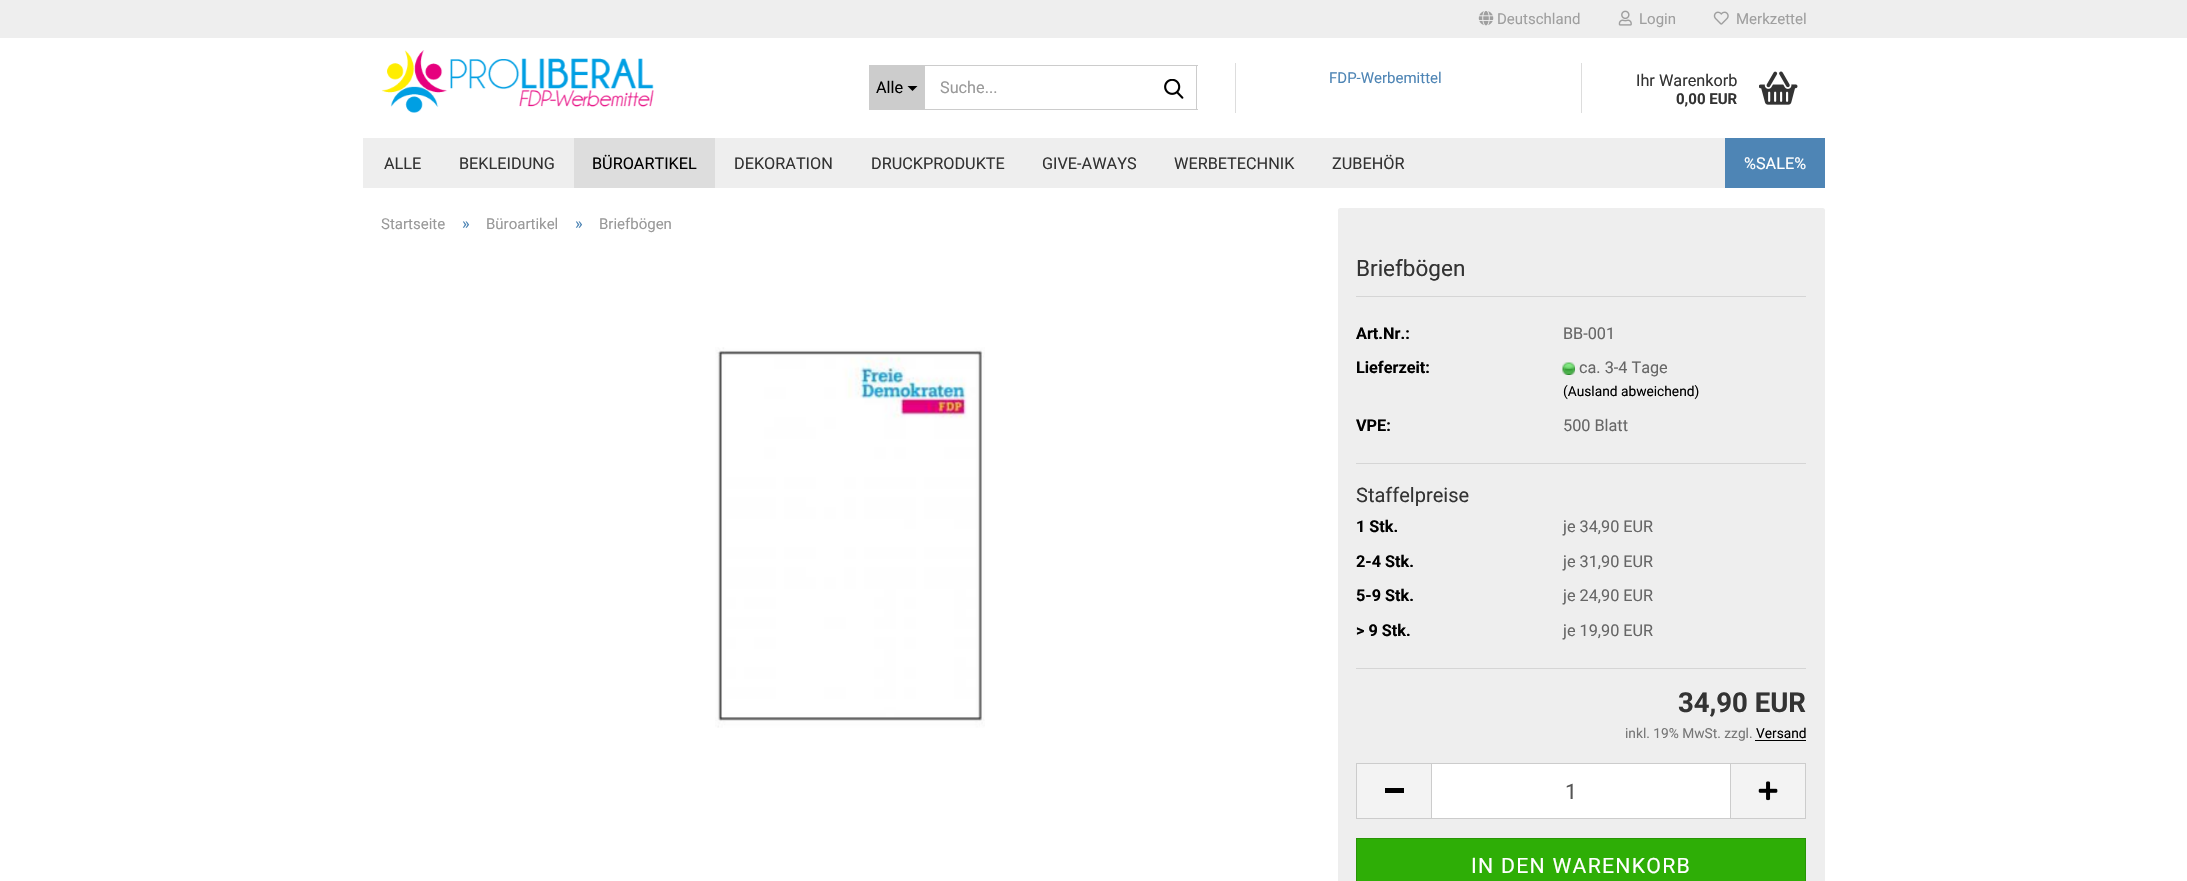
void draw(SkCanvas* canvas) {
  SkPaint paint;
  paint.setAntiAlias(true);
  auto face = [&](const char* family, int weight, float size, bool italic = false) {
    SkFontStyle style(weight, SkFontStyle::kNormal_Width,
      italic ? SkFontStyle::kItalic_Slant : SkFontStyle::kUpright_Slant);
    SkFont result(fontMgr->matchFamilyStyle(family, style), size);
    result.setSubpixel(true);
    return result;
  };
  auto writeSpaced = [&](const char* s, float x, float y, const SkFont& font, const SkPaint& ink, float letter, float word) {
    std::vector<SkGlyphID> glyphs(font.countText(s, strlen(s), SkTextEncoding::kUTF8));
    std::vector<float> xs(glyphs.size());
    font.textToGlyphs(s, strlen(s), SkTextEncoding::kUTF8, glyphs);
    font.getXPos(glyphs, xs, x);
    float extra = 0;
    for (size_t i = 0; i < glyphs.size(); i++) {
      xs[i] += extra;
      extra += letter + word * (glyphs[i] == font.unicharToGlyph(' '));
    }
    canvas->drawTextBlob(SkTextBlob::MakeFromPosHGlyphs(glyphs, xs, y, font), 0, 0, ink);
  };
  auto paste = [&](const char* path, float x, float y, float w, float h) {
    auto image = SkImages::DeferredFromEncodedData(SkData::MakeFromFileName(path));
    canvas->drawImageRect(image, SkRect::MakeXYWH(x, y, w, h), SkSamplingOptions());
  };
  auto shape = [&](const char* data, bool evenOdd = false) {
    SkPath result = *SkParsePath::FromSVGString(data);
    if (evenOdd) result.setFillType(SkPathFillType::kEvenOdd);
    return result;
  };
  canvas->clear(0xffffffff);
  paint.setColor(0xffeeeeee);
  canvas->drawRect(SkRect::MakeXYWH(0, 0, 2187, 38), paint);
  paste("img/1.png", 1478, 11, 16, 15);
  paste("img/2.png", 1618, 10, 14, 16);
  paste("img/3.png", 1713, 11, 16, 14);
  paste("img/4.png", 381, 50, 273, 63);
  paint.setColor(0xffcccccc);
  canvas->drawRect(SkRect::MakeXYWH(869, 65, 56, 45), paint);
  paint.setColor(0xff000000);
  canvas->drawPath(shape("M907.5 86H917.5L912.5 91Z"), paint);
  {
    const struct { float x, y, w, h; SkColor color; } items[] = {
      {925, 65, 273, 1, 0xffcccccc},
      {1196, 65, 1, 45, 0xffcccccc},
      {925, 109, 273, 1, 0xffcccccc},
    };
    for (auto [x, y, w, h, color] : items) {
      paint.setColor(color);
      canvas->drawRect(SkRect::MakeXYWH(x, y, w, h), paint);
    }
  }
  paste("img/5.png", 1164, 79, 20, 20);
  paint.setColor(0xffdddddd);
  canvas->drawRect(SkRect::MakeXYWH(1235, 63, 1, 50), paint);
  canvas->drawRect(SkRect::MakeXYWH(1581, 63, 1, 50), paint);
  paste("img/6.png", 1759, 71, 39, 34);
  {
    const struct { float x, y, w, h; SkColor color; } items[] = {
      {363, 138, 1362, 50, 0xffeeeeee},
      {574, 138, 141, 50, 0xffdddddd},
      {1725, 138, 100, 50, 0xff4e85b5},
    };
    for (auto [x, y, w, h, color] : items) {
      paint.setColor(color);
      canvas->drawRect(SkRect::MakeXYWH(x, y, w, h), paint);
    }
  }
  paste("img/7.png", 715, 347, 270, 381);
  paint.setColor(0xffeeeeee);
  canvas->drawRoundRect(SkRect::MakeXYWH(1338, 208, 487, 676), 2.5f, 2.5f, paint);
  paint.setColor(0xffd5d5d5);
  canvas->drawRect(SkRect::MakeXYWH(1356, 296, 450, 1), paint);
  canvas->drawRect(SkRect::MakeXYWH(1356, 463, 450, 1), paint);
  paste("img/8.png", 1562, 362, 13, 13);
  {
    const struct { float x, y, w, h; SkColor color; } items[] = {
      {1356, 668, 450, 1, 0xffd5d5d5},
      {1755, 740, 51, 1, 0xff000000},
      {1357, 764, 74, 54, 0xfff3f3f3},
      {1356, 763, 75, 1, 0xffcccccc},
      {1356, 818, 75, 1, 0xffcccccc},
      {1356, 763, 1, 56, 0xffcccccc},
      {1385, 788, 19, 5, 0xff000000},
    };
    for (auto [x, y, w, h, color] : items) {
      paint.setColor(color);
      canvas->drawRect(SkRect::MakeXYWH(x, y, w, h), paint);
    }
  }
  paint.setColor(0xffffffff);
  canvas->drawRect(SkRect::MakeXYWH(1431.5f, 763.5f, 299, 55), paint);
  paint.setStroke(true);
  paint.setStrokeWidth(1);
  paint.setColor(0xffcccccc);
  canvas->drawRect(SkRect::MakeXYWH(1431.5f, 763.5f, 299, 55), paint);
  paint.setStroke(false);
  {
    const struct { float x, y, w, h; SkColor color; } items[] = {
      {1731, 764, 74, 54, 0xfff3f3f3},
      {1731, 763, 75, 1, 0xffcccccc},
      {1805, 763, 1, 56, 0xffcccccc},
      {1731, 818, 75, 1, 0xffcccccc},
    };
    for (auto [x, y, w, h, color] : items) {
      paint.setColor(color);
      canvas->drawRect(SkRect::MakeXYWH(x, y, w, h), paint);
    }
  }
  paste("img/9.png", 1758, 781, 20, 20);
  paint.setColor(0xff2eae06);
  canvas->drawRect(SkRect::MakeXYWH(1356.5f, 838.5f, 449, 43), paint);
  paint.setStroke(true);
  paint.setColor(0xff279505);
  canvas->drawRect(SkRect::MakeXYWH(1356.5f, 838.5f, 449, 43), paint);
  auto f0 = face("Roboto", 400, 15);
  paint.setStroke(false);
  paint.setColor(0xff9f9f9f);
  {
    const struct { const char* s; float x, y; } items[] = {
      {"Deutschland", 1497, 24},
      {"Login", 1639, 24},
      {"Merkzettel", 1736, 24},
    };
    for (auto [s, x, y] : items) {
      canvas->drawString(s, x, y, f0, paint);
    }
  }
  auto f1 = face("Roboto", 400, 16.25f);
  paint.setColor(0xff000000);
  canvas->drawString("Alle", 876, 93, f1, paint);
  paint.setColor(0xff999999);
  canvas->drawString("Suche...", 940, 93, f1, paint);
  paint.setColor(0xff4e85b5);
  canvas->drawString("FDP-Werbemittel", 1329, 83, f0, paint);
  paint.setColor(0xff333333);
  canvas->drawString("Ihr Warenkorb", 1636, 86, f1, paint);
  auto f2 = face("Roboto", 700, 15);
  canvas->drawString("0,00 EUR", 1676, 104, f2, paint);
  canvas->drawString("ALLE", 384, 169, f1, paint);
  canvas->drawString("BEKLEIDUNG", 459, 169, f1, paint);
  paint.setColor(0xff000000);
  canvas->drawString("BÜROARTIKEL", 592, 169, f1, paint);
  paint.setColor(0xff333333);
  {
    const struct { const char* s; float x, y; } items[] = {
      {"DEKORATION", 734, 169},
      {"DRUCKPRODUKTE", 871, 169},
      {"GIVE-AWAYS", 1042, 169},
      {"WERBETECHNIK", 1174, 169},
      {"ZUBEHÖR", 1332, 169},
    };
    for (auto [s, x, y] : items) {
      canvas->drawString(s, x, y, f1, paint);
    }
  }
  paint.setColor(0xffffffff);
  canvas->drawString("%SALE%", 1744, 169, f1, paint);
  paint.setColor(0xff999999);
  canvas->drawString("Startseite", 381, 229, f0, paint);
  paint.setColor(0xff4e85b5);
  canvas->drawString("»", 462, 229, f1, paint);
  paint.setColor(0xff999999);
  canvas->drawString("Büroartikel", 486, 229, f0, paint);
  paint.setColor(0xff4e85b5);
  canvas->drawString("»", 575, 229, f1, paint);
  paint.setColor(0xff999999);
  canvas->drawString("Briefbögen", 599, 229, f0, paint);
  auto f3 = face("Roboto", 400, 22.5f);
  paint.setColor(0xff333333);
  canvas->drawString("Briefbögen", 1356, 276, f3, paint);
  auto f4 = face("Roboto", 700, 16.25f);
  paint.setColor(0xff000000);
  canvas->drawString("Art.Nr.:", 1356, 339, f4, paint);
  paint.setColor(0xff666666);
  canvas->drawString("BB-001", 1563, 339, f1, paint);
  paint.setColor(0xff000000);
  canvas->drawString("Lieferzeit:", 1356, 373, f4, paint);
  paint.setColor(0xff666666);
  canvas->drawString("ca. 3-4 Tage", 1579, 373, f1, paint);
  auto f5 = face("Roboto", 400, 13.75f);
  paint.setColor(0xff000000);
  canvas->drawString("(Ausland abweichend)", 1563, 396, f5, paint);
  canvas->drawString("VPE:", 1356, 431, f4, paint);
  paint.setColor(0xff666666);
  canvas->drawString("500 Blatt", 1563, 431, f1, paint);
  auto f6 = face("Roboto", 400, 20);
  paint.setColor(0xff333333);
  canvas->drawString("Staffelpreise", 1356, 502, f6, paint);
  paint.setColor(0xff000000);
  canvas->drawString("1 Stk.", 1356, 532, f4, paint);
  paint.setColor(0xff666666);
  canvas->drawString("je 34,90 EUR", 1563, 532, f1, paint);
  paint.setColor(0xff000000);
  canvas->drawString("2-4 Stk.", 1356, 567, f4, paint);
  paint.setColor(0xff666666);
  canvas->drawString("je 31,90 EUR", 1563, 567, f1, paint);
  paint.setColor(0xff000000);
  canvas->drawString("5-9 Stk.", 1356, 601, f4, paint);
  paint.setColor(0xff666666);
  canvas->drawString("je 24,90 EUR", 1563, 601, f1, paint);
  paint.setColor(0xff000000);
  canvas->drawString("> 9 Stk.", 1356, 636, f4, paint);
  paint.setColor(0xff666666);
  canvas->drawString("je 19,90 EUR", 1563, 636, f1, paint);
  auto f7 = face("Roboto", 700, 27.5f);
  paint.setColor(0xff333333);
  canvas->drawString("34,90 EUR", 1678, 712, f7, paint);
  paint.setColor(0xff777777);
  canvas->drawString("inkl. 19% MwSt. zzgl.", 1625, 738, f5, paint);
  paint.setColor(0xff000000);
  canvas->drawString("Versand", 1756, 738, f5, paint);
  auto f8 = face("Roboto", 400, 21.25f);
  paint.setColor(0xff555555);
  canvas->drawString("1", 1565, 799, f8, paint);
  paint.setColor(0xffffffff);
  writeSpaced("IN DEN WARENKORB", 1471, 873, f8, paint, 1.25f, 0);
}
